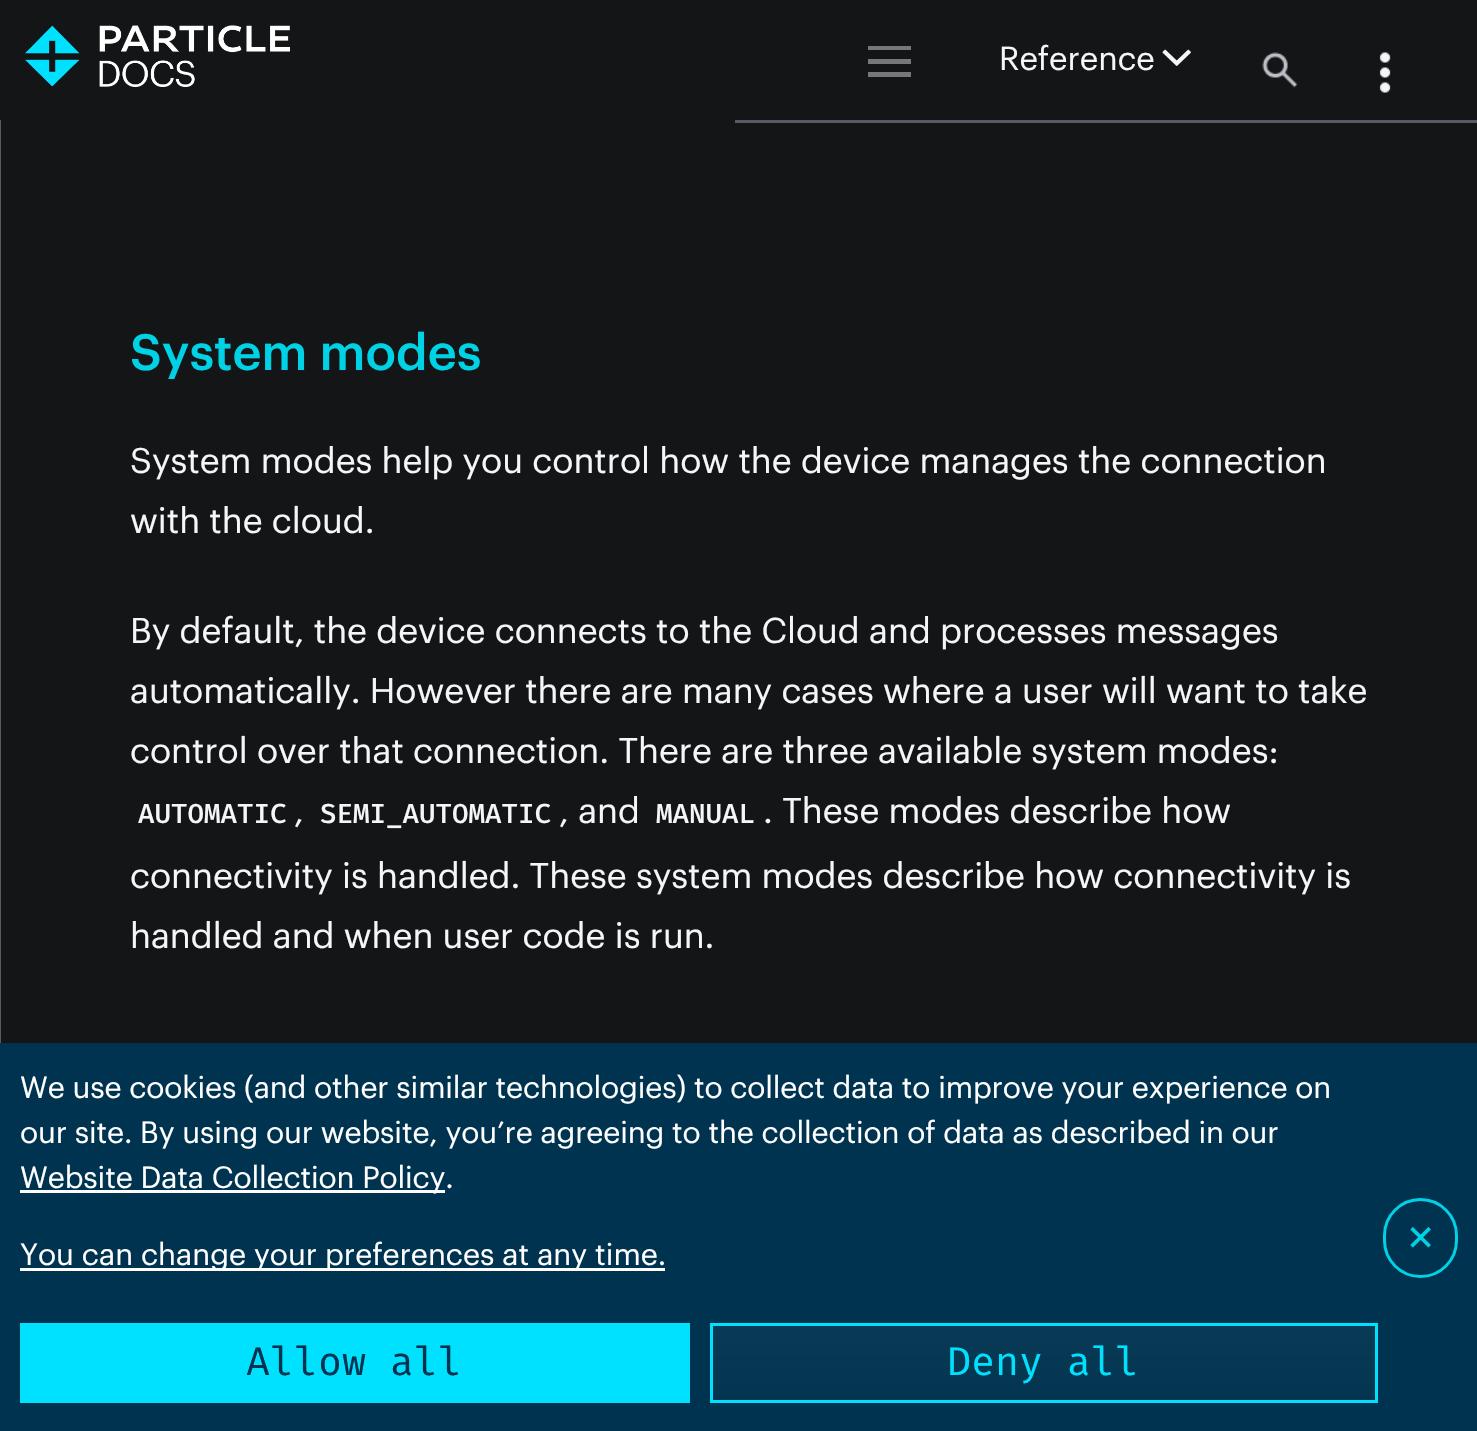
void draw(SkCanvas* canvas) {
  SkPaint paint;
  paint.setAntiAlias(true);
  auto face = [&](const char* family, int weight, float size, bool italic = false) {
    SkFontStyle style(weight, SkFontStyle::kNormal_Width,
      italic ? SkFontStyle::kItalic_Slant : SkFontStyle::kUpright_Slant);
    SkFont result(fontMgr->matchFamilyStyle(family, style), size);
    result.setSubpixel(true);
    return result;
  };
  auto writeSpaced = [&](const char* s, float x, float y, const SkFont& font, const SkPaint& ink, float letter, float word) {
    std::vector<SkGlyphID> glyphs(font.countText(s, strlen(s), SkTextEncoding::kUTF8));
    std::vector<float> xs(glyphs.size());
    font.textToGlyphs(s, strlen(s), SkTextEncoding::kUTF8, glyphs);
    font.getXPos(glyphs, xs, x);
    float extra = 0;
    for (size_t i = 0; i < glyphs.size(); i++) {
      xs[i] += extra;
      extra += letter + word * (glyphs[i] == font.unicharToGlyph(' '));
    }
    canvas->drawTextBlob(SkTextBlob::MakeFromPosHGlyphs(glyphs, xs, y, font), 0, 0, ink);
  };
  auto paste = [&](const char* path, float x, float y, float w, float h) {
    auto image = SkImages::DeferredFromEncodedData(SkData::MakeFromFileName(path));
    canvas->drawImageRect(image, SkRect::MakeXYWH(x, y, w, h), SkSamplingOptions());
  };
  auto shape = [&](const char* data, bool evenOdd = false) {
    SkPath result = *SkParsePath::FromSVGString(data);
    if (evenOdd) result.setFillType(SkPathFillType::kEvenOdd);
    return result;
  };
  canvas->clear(0xff131517);
  paste("img/1.png", 25, 25, 265, 62);
  paint.setColor(0xff565a65);
  canvas->drawRect(SkRect::MakeXYWH(735, 120, 742, 3), paint);
  paint.setColor(0xff76777a);
  canvas->drawPath(shape("M868 64V59H911V64ZM868 50V46H911V50ZM868 77V72H911V77Z"), paint);
  paste("img/2.png", 1162, 49, 29, 17);
  paste("img/3.png", 1262, 52, 36, 36);
  paste("img/4.png", 1379, 52, 12, 41);
  {
    const struct { float x, y, w, h; SkColor color; } items[] = {
      {0, 120, 1, 923, 0xff565a65},
      {0, 1043, 1477, 388, 0xff00334f},
      {20, 1190, 425, 3, 0xffffffff},
      {20, 1268, 645, 3, 0xffffffff},
    };
    for (auto [x, y, w, h, color] : items) {
      paint.setColor(color);
      canvas->drawRect(SkRect::MakeXYWH(x, y, w, h), paint);
    }
  }
  paint.setStroke(true);
  paint.setStrokeWidth(3);
  paint.setColor(0xff00d2e6);
  canvas->drawRoundRect(SkRect::MakeXYWH(1384.5f, 1199.5f, 72, 77), 36, 36, paint);
  paint.setStroke(false);
  paint.setColor(0xff00e1ff);
  canvas->drawRect(SkRect::MakeXYWH(25, 1328, 660, 70), paint);
  paint.setStroke(true);
  paint.setStrokeWidth(5);
  canvas->drawRect(SkRect::MakeXYWH(22.5f, 1325.5f, 665, 75), paint);
  paint.setStroke(false);
  {
    const SkColor colors[] = {0xff033550, 0xff0a3b56};
    const float stops[] = {0, 1};
    const SkPoint ends[] = {{1044, 1403}, {1044, 1323}};
    paint.setShader(SkGradientShader::MakeLinear(ends, colors, stops, 2, SkTileMode::kClamp));
    paint.setAlpha(255);
  }
  canvas->drawRect(SkRect::MakeXYWH(713, 1326, 662, 74), paint);
  paint.setStroke(true);
  paint.setStrokeWidth(3);
  paint.setShader(nullptr);
  paint.setColor(0xff00e1ff);
  canvas->drawRect(SkRect::MakeXYWH(711.5f, 1324.5f, 665, 77), paint);
  auto f0 = face("Graphik", 400, 32.5f);
  paint.setStroke(false);
  paint.setColor(0xfff5f6fa);
  canvas->drawString("Reference", 999, 70, f0, paint);
  auto f1 = face("Graphik", 500, 50);
  paint.setColor(0xff00d2e6);
  canvas->drawString("System modes", 130, 370, f1, paint);
  auto f2 = face("Graphik", 400, 35);
  paint.setColor(0xfff5f6fa);
  {
    const struct { const char* s; float x, y; } items[] = {
      {"System modes help you control how the device manages the connection", 130, 473},
      {"with the cloud.", 130, 533},
      {"By default, the device connects to the Cloud and processes messages", 130, 643},
      {"automatically. However there are many cases where a user will want to take", 130, 703},
      {"control over that connection. There are three available system modes:", 130, 763},
    };
    for (auto [s, x, y] : items) {
      canvas->drawString(s, x, y, f2, paint);
    }
  }
  auto f3 = face("Fira Mono", 500, 27.5f);
  canvas->drawString("AUTOMATIC", 138, 823, f3, paint);
  canvas->drawString(",", 294, 823, f2, paint);
  canvas->drawString("SEMI_AUTOMATIC", 320, 823, f3, paint);
  canvas->drawString(", and", 559, 823, f2, paint);
  canvas->drawString("MANUAL", 656, 823, f3, paint);
  {
    const struct { const char* s; float x, y; } items[] = {
      {". These modes describe how", 763, 823},
      {"connectivity is handled. These system modes describe how connectivity is", 130, 888},
      {"handled and when user code is run.", 130, 948},
    };
    for (auto [s, x, y] : items) {
      canvas->drawString(s, x, y, f2, paint);
    }
  }
  auto f4 = face("Graphik", 400, 30);
  paint.setColor(0xffffffff);
  {
    const struct { const char* s; float x, y; } items[] = {
      {"We use cookies (and other similar technologies) to collect data to improve your experience on", 20, 1098},
      {"our site. By using our website, you’re agreeing to the collection of data as described in our", 20, 1143},
      {"Website Data Collection Policy.", 20, 1188},
    };
    for (auto [s, x, y] : items) {
      writeSpaced(s, x, y, f4, paint, -0.12f, 0);
    }
  }
  canvas->drawString("You can change your preferences at any time.", 20, 1265, f4, paint);
  auto f5 = face("DejaVu Sans", 400, 35);
  paint.setColor(0xff00d2e6);
  canvas->drawString("✕", 1406, 1250, f5, paint);
  auto f6 = face("Fira Mono", 400, 40);
  paint.setColor(0xff00334f);
  canvas->drawString("Allow all", 246, 1375, f6, paint);
  paint.setColor(0xff00e1ff);
  canvas->drawString("Deny all", 947, 1375, f6, paint);
}
